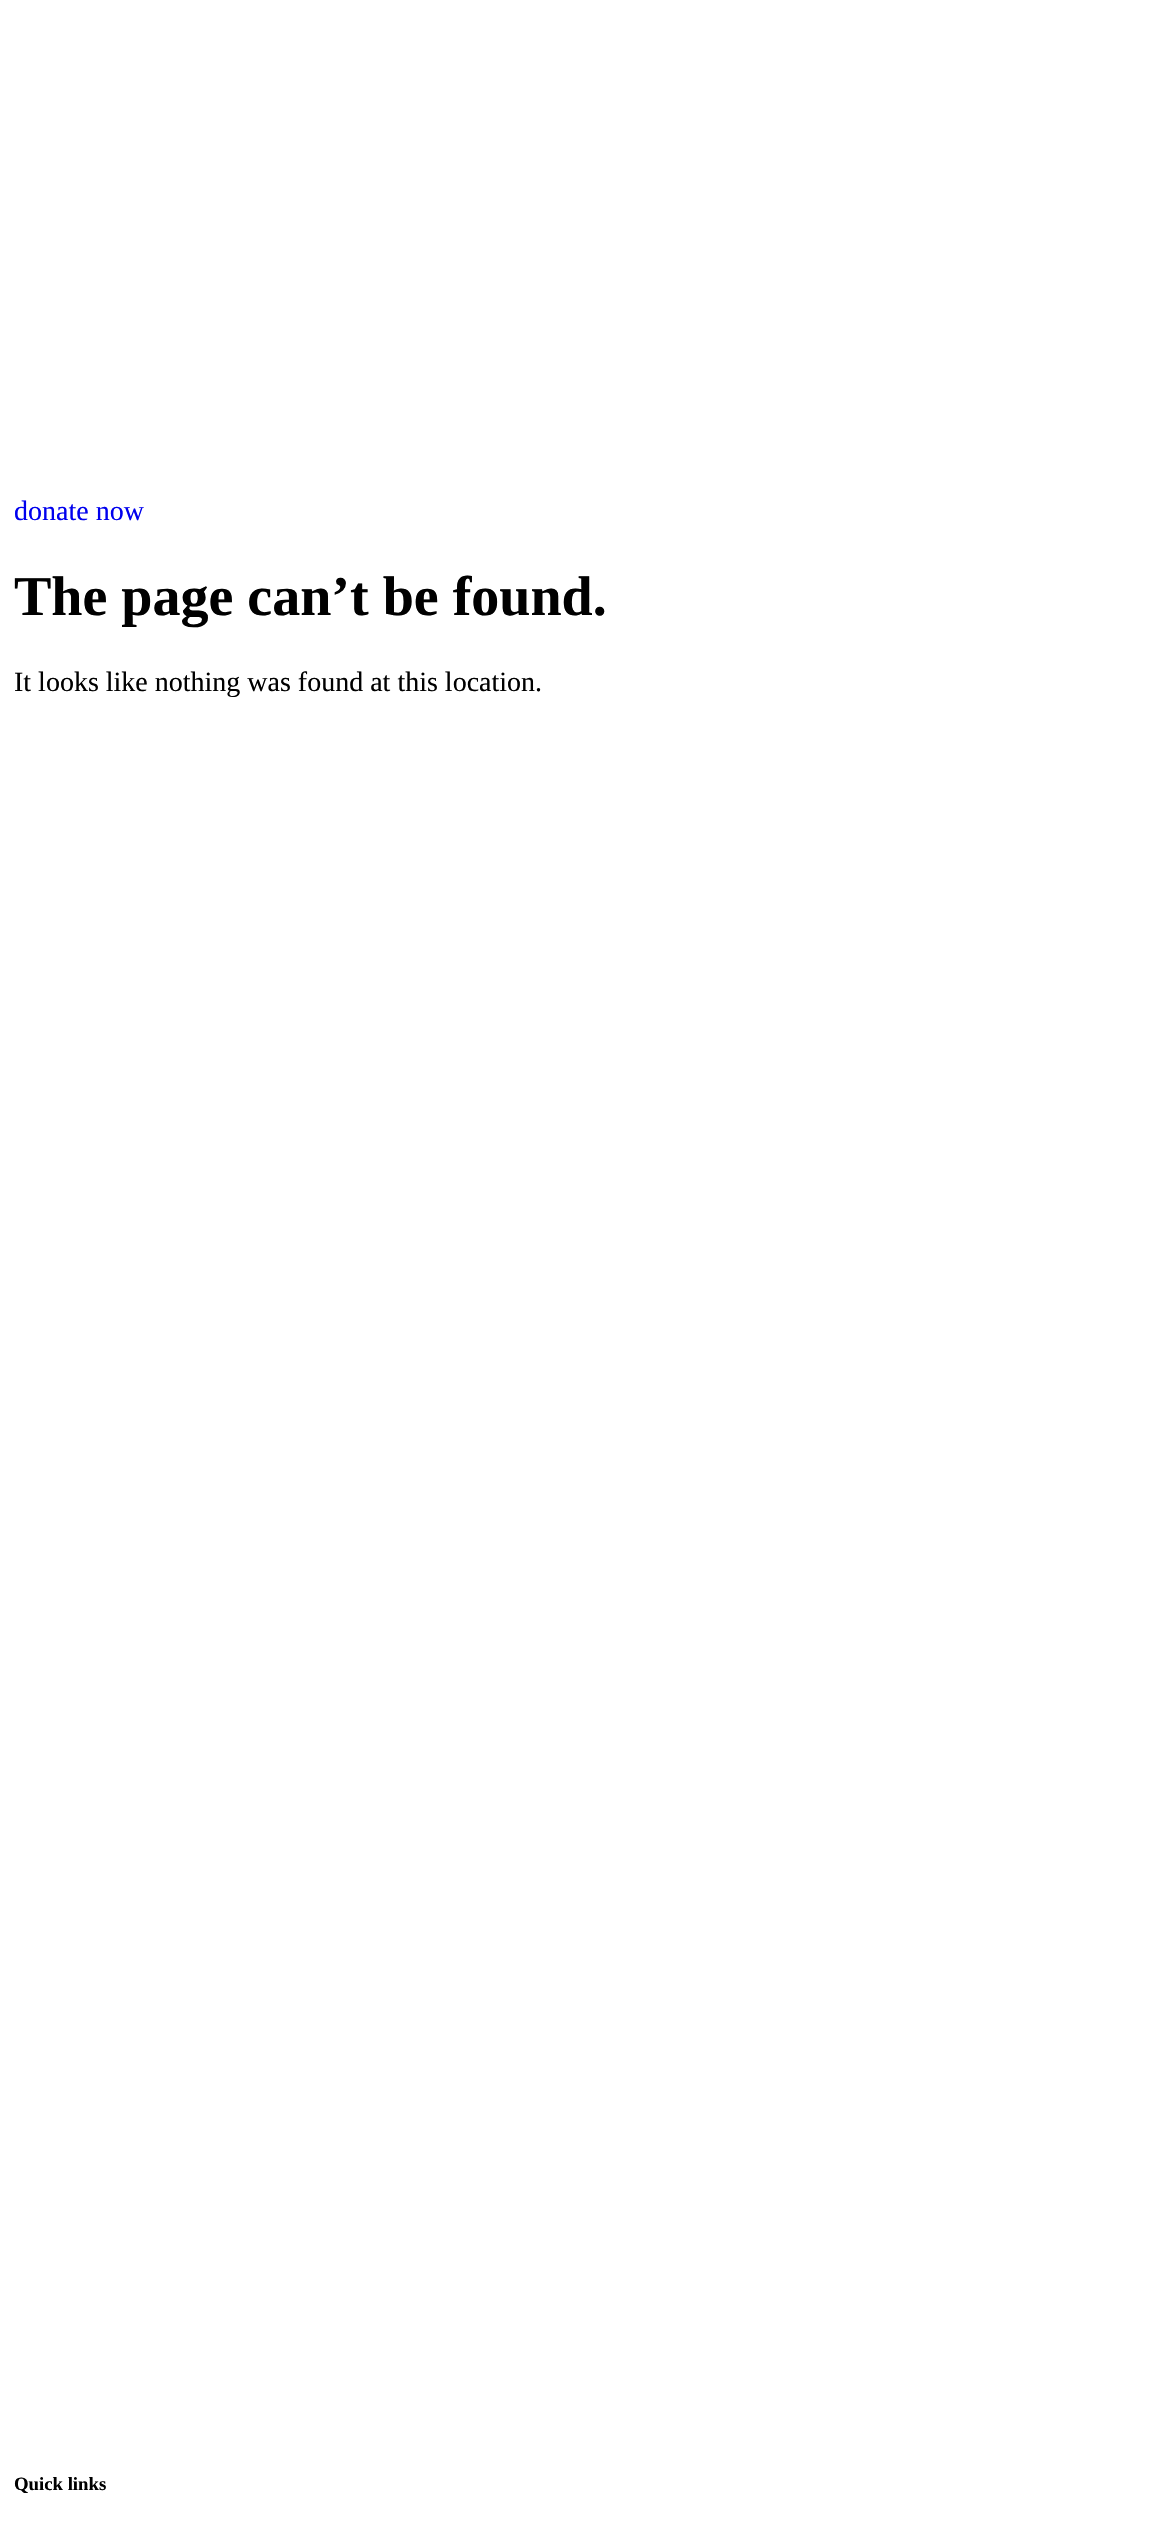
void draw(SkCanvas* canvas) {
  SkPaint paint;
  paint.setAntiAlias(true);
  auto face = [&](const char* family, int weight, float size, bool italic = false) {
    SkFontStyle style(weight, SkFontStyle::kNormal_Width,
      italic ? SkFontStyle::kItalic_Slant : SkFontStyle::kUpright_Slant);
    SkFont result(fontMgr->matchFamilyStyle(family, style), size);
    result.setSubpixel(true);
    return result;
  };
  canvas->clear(0xffffffff);
  auto f0 = face("Liberation Serif", 400, 28);
  paint.setColor(0xff0000ee);
  canvas->drawString("donate now", 14, 520, f0, paint);
  auto f1 = face("Liberation Serif", 700, 56);
  paint.setColor(0xff000000);
  canvas->drawString("The page can’t be found.", 14, 615, f1, paint);
  canvas->drawString("It looks like nothing was found at this location.", 14, 691, f0, paint);
  auto f2 = face("Liberation Serif", 700, 18.75f);
  canvas->drawString("Quick links", 14, 2490, f2, paint);
}
